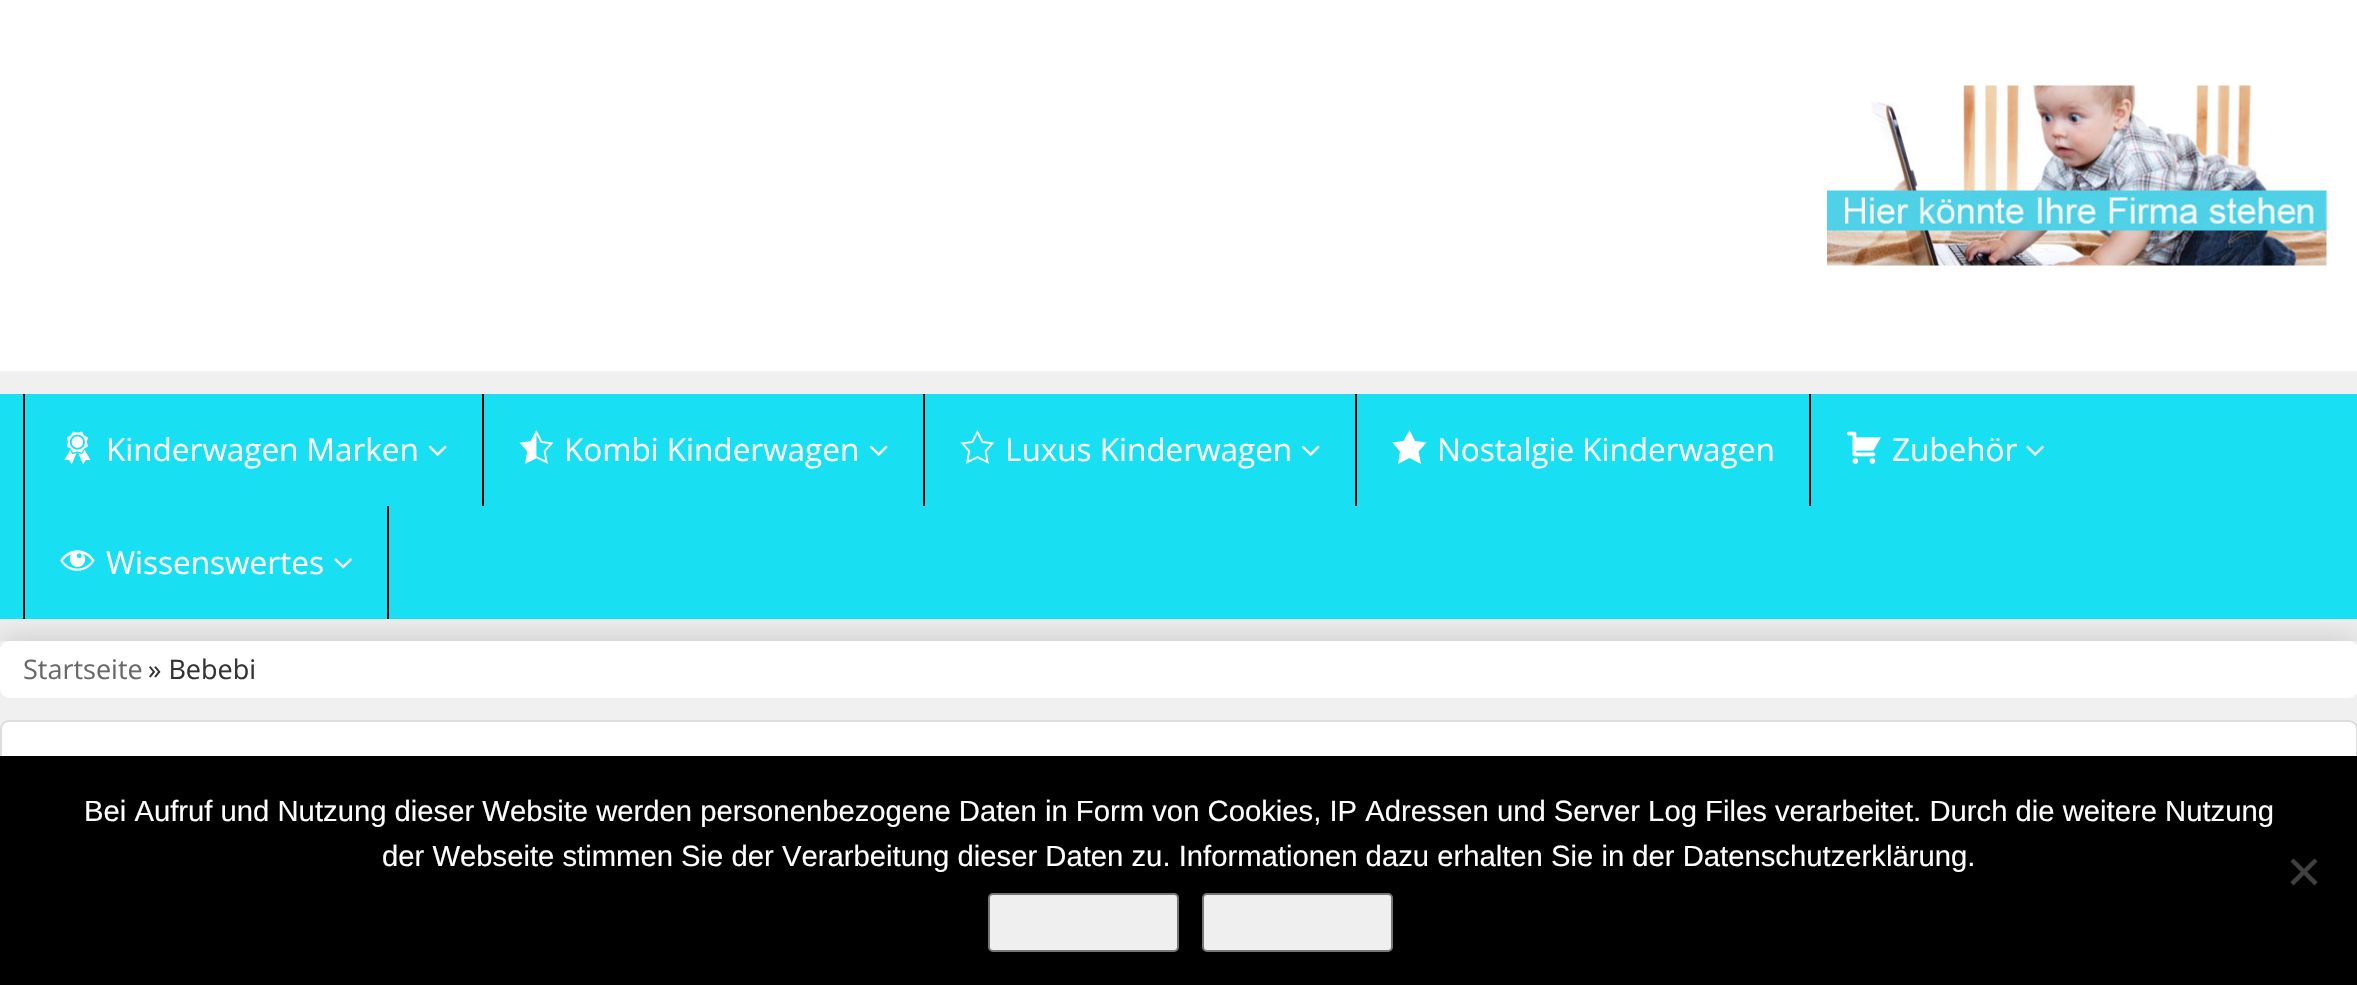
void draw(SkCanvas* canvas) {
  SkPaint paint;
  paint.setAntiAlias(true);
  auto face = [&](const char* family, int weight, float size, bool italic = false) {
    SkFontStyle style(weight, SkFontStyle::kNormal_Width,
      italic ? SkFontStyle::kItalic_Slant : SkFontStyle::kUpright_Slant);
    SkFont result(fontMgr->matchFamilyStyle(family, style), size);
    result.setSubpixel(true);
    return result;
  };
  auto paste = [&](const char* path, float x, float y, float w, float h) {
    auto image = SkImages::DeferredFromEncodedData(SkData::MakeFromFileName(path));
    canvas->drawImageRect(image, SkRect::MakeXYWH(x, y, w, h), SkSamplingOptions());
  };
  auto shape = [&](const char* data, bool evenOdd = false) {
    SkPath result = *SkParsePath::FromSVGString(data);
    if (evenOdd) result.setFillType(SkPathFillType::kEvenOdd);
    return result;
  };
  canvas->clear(0xfff1f0f0);
  paint.setColor(0xffffffff);
  canvas->drawRect(SkRect::MakeXYWH(0, 0, 2357, 371), paint);
  paste("img/1.png", 1827, 85, 500, 181);
  canvas->save();
  canvas->clipPath(shape("M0 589H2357V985H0ZM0 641H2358V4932H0Z", true), true);
  paint.setColor(0xffc1c1c1);
  paint.setMaskFilter(SkMaskFilter::MakeBlur(kNormal_SkBlurStyle, 17));
  canvas->drawRect(SkRect::MakeXYWH(0, 641, 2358, 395), paint);
  paint.setMaskFilter(nullptr);
  canvas->restore();
  paint.setColor(0xff18e0f2);
  canvas->drawRect(SkRect::MakeXYWH(0, 394, 2357, 225), paint);
  paint.setColor(0xff000000);
  canvas->drawRect(SkRect::MakeXYWH(23, 394, 2, 225), paint);
  paste("img/2.png", 64, 431, 27, 34);
  paste("img/3.png", 428, 445, 19, 11);
  canvas->drawRect(SkRect::MakeXYWH(482, 394, 2, 112), paint);
  paste("img/4.png", 519, 430, 35, 34);
  paste("img/3.png", 869, 445, 19, 11);
  canvas->drawRect(SkRect::MakeXYWH(923, 394, 2, 112), paint);
  paste("img/5.png", 960, 430, 35, 34);
  paste("img/3.png", 1301, 445, 19, 11);
  canvas->drawRect(SkRect::MakeXYWH(1355, 394, 2, 112), paint);
  paint.setColor(0xffffffff);
  canvas->drawPath(shape("M1409.5 430L1415 441L1426.5 442.5L1418.5 451.5L1421 464L1409.5 458L1398 464L1400 451.5L1392.5 442.5L1403.5 441Z"), paint);
  paint.setColor(0xff000000);
  canvas->drawRect(SkRect::MakeXYWH(1809, 394, 2, 112), paint);
  paste("img/6.png", 1846, 431, 35, 33);
  paste("img/7.png", 2026, 445, 18, 11);
  canvas->drawRect(SkRect::MakeXYWH(387, 506, 2, 113), paint);
  paste("img/8.png", 60, 550, 35, 21);
  paste("img/9.png", 334, 558, 18, 11);
  paint.setColor(0xffffffff);
  canvas->drawRoundRect(SkRect::MakeXYWH(0, 641, 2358, 57), 9, 9, paint);
  canvas->drawRoundRect(SkRect::MakeXYWH(1, 721, 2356, 174), 8, 8, paint);
  paint.setStroke(true);
  paint.setStrokeWidth(2);
  paint.setColor(0xffdddddd);
  canvas->drawRoundRect(SkRect::MakeXYWH(1, 721, 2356, 174), 8, 8, paint);
  paint.setStroke(false);
  paint.setColor(0xff000000);
  canvas->drawRect(SkRect::MakeXYWH(0, 756, 2357, 229), paint);
  paint.setColor(0xff404040);
  canvas->drawPath(shape("M2314.5 858.5L2317.5 861.5L2293.5 885.5L2290.5 882Z"), paint);
  canvas->drawPath(shape("M2290.5 861.5L2293.5 858.5L2317.5 882L2314.5 885.5Z"), paint);
  paint.setColor(0xffefefef);
  canvas->drawRoundRect(SkRect::MakeXYWH(989, 894, 189, 57), 4, 4, paint);
  paint.setStroke(true);
  paint.setColor(0xff767676);
  canvas->drawRoundRect(SkRect::MakeXYWH(989, 894, 189, 57), 4, 4, paint);
  paint.setStroke(false);
  paint.setColor(0xffefefef);
  canvas->drawRoundRect(SkRect::MakeXYWH(1203, 894, 189, 57), 4, 4, paint);
  paint.setStroke(true);
  paint.setColor(0xff767676);
  canvas->drawRoundRect(SkRect::MakeXYWH(1203, 894, 189, 57), 4, 4, paint);
  auto f0 = face("Open Sans", 400, 31.5f);
  paint.setStroke(false);
  paint.setColor(0xffffffff);
  {
    const struct { const char* s; float x, y; } items[] = {
      {"Kinderwagen Marken", 106, 461},
      {"Kombi Kinderwagen", 564, 461},
      {"Luxus Kinderwagen", 1005, 461},
      {"Nostalgie Kinderwagen", 1437, 461},
      {"Zubehör", 1892, 461},
      {"Wissenswertes", 106, 574},
    };
    for (auto [s, x, y] : items) {
      canvas->drawString(s, x, y, f0, paint);
    }
  }
  auto f1 = face("Open Sans", 400, 27);
  paint.setColor(0xff69686b);
  canvas->drawString("Startseite", 23, 679, f1, paint);
  paint.setColor(0xff333333);
  canvas->drawString("» Bebebi", 148, 679, f1, paint);
  auto f2 = face("Liberation Sans", 400, 29.25f);
  paint.setColor(0xffffffff);
  canvas->drawString("Bei Aufruf und Nutzung dieser Website werden personenbezogene Daten in Form von Cookies, IP Adressen und Server Log Files verarbeitet. Durch die weitere Nutzung", 84, 821, f2, paint);
  canvas->drawString("der Webseite stimmen Sie der Verarbeitung dieser Daten zu. Informationen dazu erhalten Sie in der Datenschutzerklärung.", 382, 866, f2, paint);
}
